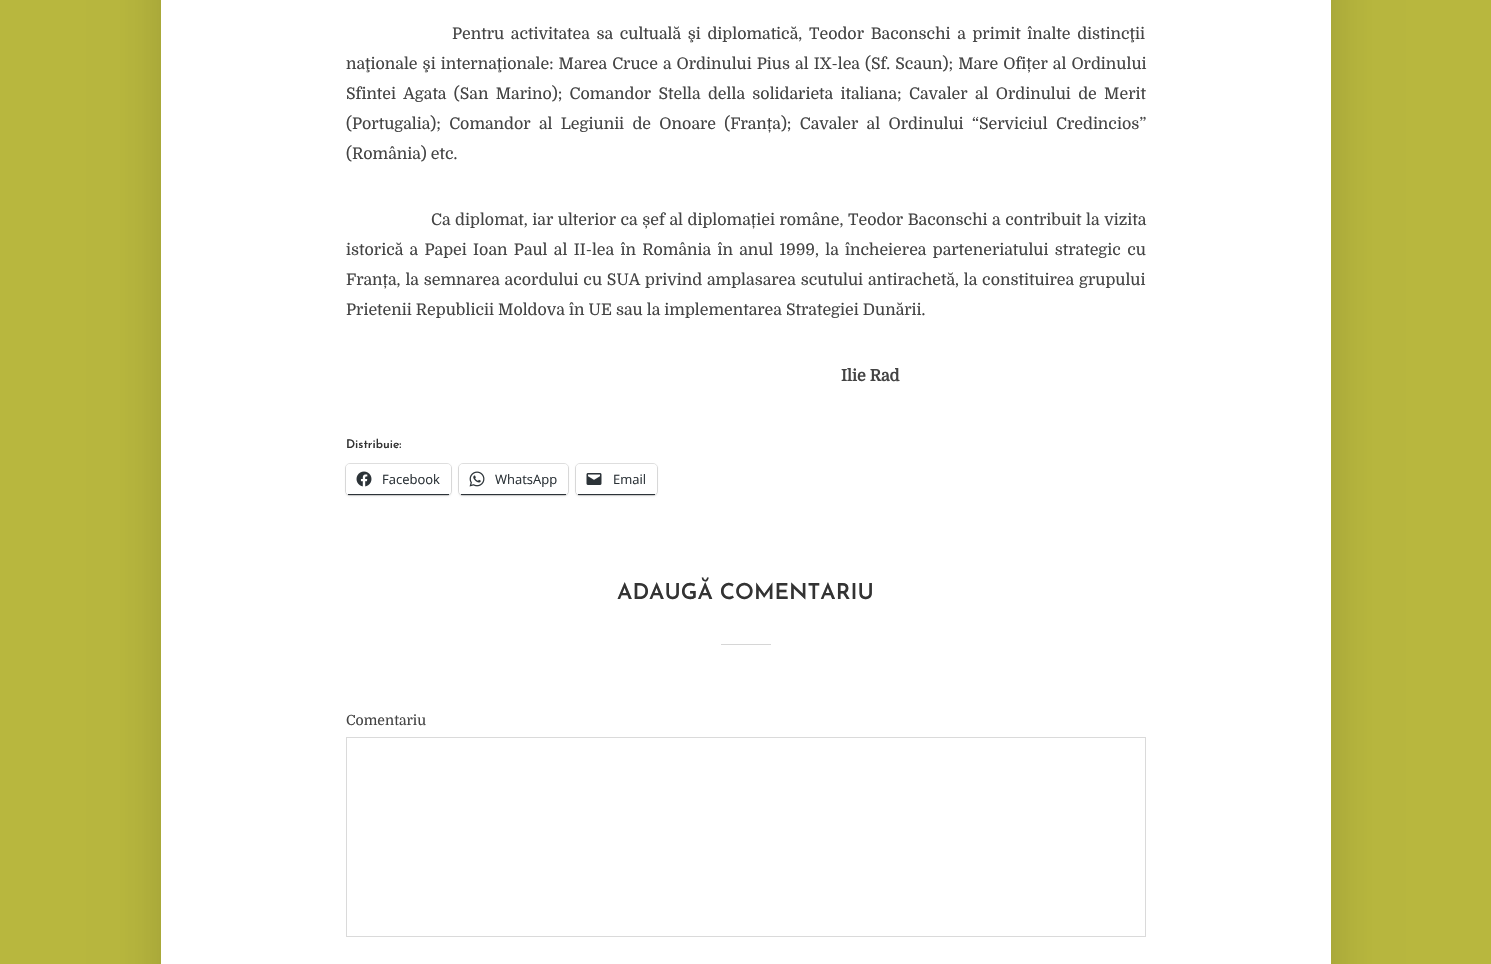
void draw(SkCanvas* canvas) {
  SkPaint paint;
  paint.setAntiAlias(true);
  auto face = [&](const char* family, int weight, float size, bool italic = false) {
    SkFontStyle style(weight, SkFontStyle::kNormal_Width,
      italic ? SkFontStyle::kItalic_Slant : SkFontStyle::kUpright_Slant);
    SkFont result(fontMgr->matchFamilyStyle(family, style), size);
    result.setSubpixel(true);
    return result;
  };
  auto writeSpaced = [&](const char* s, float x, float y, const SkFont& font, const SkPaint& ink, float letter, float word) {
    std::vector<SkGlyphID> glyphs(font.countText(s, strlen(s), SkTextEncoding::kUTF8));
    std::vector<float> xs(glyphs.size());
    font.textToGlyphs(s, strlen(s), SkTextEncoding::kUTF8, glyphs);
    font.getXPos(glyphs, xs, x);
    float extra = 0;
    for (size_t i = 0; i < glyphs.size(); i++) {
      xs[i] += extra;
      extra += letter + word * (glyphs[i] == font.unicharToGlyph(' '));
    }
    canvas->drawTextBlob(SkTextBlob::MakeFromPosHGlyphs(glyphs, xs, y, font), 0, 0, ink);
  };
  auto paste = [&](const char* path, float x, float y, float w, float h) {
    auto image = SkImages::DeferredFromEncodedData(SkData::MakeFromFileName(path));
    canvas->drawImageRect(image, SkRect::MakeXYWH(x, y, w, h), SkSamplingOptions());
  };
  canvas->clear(0xffb8b73e);
  paint.setColor(0x26010101);
  paint.setMaskFilter(SkMaskFilter::MakeBlur(kNormal_SkBlurStyle, 25));
  canvas->drawRect(SkRect::MakeXYWH(161, -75, 1170, 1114), paint);
  paint.setMaskFilter(nullptr);
  paint.setColor(0xffffffff);
  canvas->drawRect(SkRect::MakeXYWH(161, 0, 1170, 964), paint);
  paint.setStroke(true);
  paint.setStrokeWidth(1);
  paint.setColor(0xffe0e0e0);
  canvas->drawRoundRect(SkRect::MakeXYWH(345.5f, 463.5f, 106, 32), 4.5f, 4.5f, paint);
  paint.setStroke(false);
  paint.setColor(0x1f000000);
  paint.setMaskFilter(SkMaskFilter::MakeBlur(kNormal_SkBlurStyle, 1));
  canvas->drawRoundRect(SkRect::MakeXYWH(346, 465, 105, 31), 4, 4, paint);
  paint.setMaskFilter(nullptr);
  paint.setColor(0xffffffff);
  canvas->drawRoundRect(SkRect::MakeXYWH(346, 464, 105, 31), 4, 4, paint);
  paint.setColor(0xff2c3338);
  canvas->drawRect(SkRect::MakeXYWH(348, 494, 101, 1), paint);
  paste("img/1.png", 356, 471, 16, 16);
  paint.setStroke(true);
  paint.setColor(0xffe0e0e0);
  canvas->drawRoundRect(SkRect::MakeXYWH(458.5f, 463.5f, 110, 32), 4.5f, 4.5f, paint);
  paint.setStroke(false);
  paint.setColor(0x1f000000);
  paint.setMaskFilter(SkMaskFilter::MakeBlur(kNormal_SkBlurStyle, 1));
  canvas->drawRoundRect(SkRect::MakeXYWH(459, 465, 109, 31), 4, 4, paint);
  paint.setMaskFilter(nullptr);
  paint.setColor(0xffffffff);
  canvas->drawRoundRect(SkRect::MakeXYWH(459, 464, 109, 31), 4, 4, paint);
  paint.setColor(0xff2c3338);
  canvas->drawRect(SkRect::MakeXYWH(461, 494, 105, 1), paint);
  paste("img/2.png", 469, 471, 16, 16);
  paint.setStroke(true);
  paint.setColor(0xffe0e0e0);
  canvas->drawRoundRect(SkRect::MakeXYWH(575.5f, 463.5f, 82, 32), 4.5f, 4.5f, paint);
  paint.setStroke(false);
  paint.setColor(0x1f000000);
  paint.setMaskFilter(SkMaskFilter::MakeBlur(kNormal_SkBlurStyle, 1));
  canvas->drawRoundRect(SkRect::MakeXYWH(576, 465, 81, 31), 4, 4, paint);
  paint.setMaskFilter(nullptr);
  paint.setColor(0xffffffff);
  canvas->drawRoundRect(SkRect::MakeXYWH(576, 464, 81, 31), 4, 4, paint);
  paint.setColor(0xff2c3338);
  canvas->drawRect(SkRect::MakeXYWH(578, 494, 77, 1), paint);
  paste("img/3.png", 586, 473, 16, 12);
  paint.setColor(0xffd6d6d6);
  canvas->drawRect(SkRect::MakeXYWH(721, 644, 50, 1), paint);
  paint.setStroke(true);
  paint.setColor(0xffdadada);
  canvas->drawRect(SkRect::MakeXYWH(346.5f, 737.5f, 799, 199), paint);
  auto f0 = face("Domine", 400, 16);
  paint.setStroke(false);
  paint.setColor(0xff444444);
  writeSpaced("Pentru activitatea sa cultuală şi diplomatică, Teodor Baconschi a primit înalte distincţii", 452, 39, f0, paint, 0, 2.6f);
  writeSpaced("naţionale şi internaţionale: Marea Cruce a Ordinului Pius al IX-lea (Sf. Scaun); Mare Ofițer al Ordinului", 346, 69, f0, paint, 0, 1);
  writeSpaced("Sfintei Agata (San Marino); Comandor Stella della solidarieta italiana; Cavaler al Ordinului de Merit", 346, 99, f0, paint, 0, 3.25f);
  writeSpaced("(Portugalia); Comandor al Legiunii de Onoare (Franța); Cavaler al Ordinului “Serviciul Credincios”", 346, 129, f0, paint, 0, 4.25f);
  canvas->drawString("(România) etc.", 346, 159, f0, paint);
  writeSpaced("Ca diplomat, iar ulterior ca șef al diplomației române, Teodor Baconschi a contribuit la vizita", 431, 225, f0, paint, 0, 0.5f);
  writeSpaced("istorică a Papei Ioan Paul al II-lea în România în anul 1999, la încheierea parteneriatului strategic cu", 346, 255, f0, paint, 0, 2.25f);
  writeSpaced("Franța, la semnarea acordului cu SUA privind amplasarea scutului antirachetă, la constituirea grupului", 346, 285, f0, paint, 0, 0.75f);
  canvas->drawString("Prietenii Republicii Moldova în UE sau la implementarea Strategiei Dunării.", 346, 315, f0, paint);
  auto f1 = face("Domine", 700, 16);
  canvas->drawString("Ilie Rad", 841, 381, f1, paint);
  auto f2 = face("Josefin Sans", 600, 12);
  paint.setColor(0xff333333);
  canvas->drawString("Distribuie:", 346, 448, f2, paint);
  auto f3 = face("Open Sans", 400, 13);
  paint.setColor(0xff2c3338);
  {
    const struct { const char* s; float x, y; } items[] = {
      {"Facebook", 382, 484},
      {"WhatsApp", 495, 484},
      {"Email", 613, 484},
    };
    for (auto [s, x, y] : items) {
      canvas->drawString(s, x, y, f3, paint);
    }
  }
  auto f4 = face("Josefin Sans", 600, 22);
  paint.setColor(0xff333333);
  canvas->drawString("ADAUGĂ COMENTARIU", 617, 599, f4, paint);
  auto f5 = face("Domine", 400, 14);
  paint.setColor(0xff444444);
  canvas->drawString("Comentariu", 346, 725, f5, paint);
}
